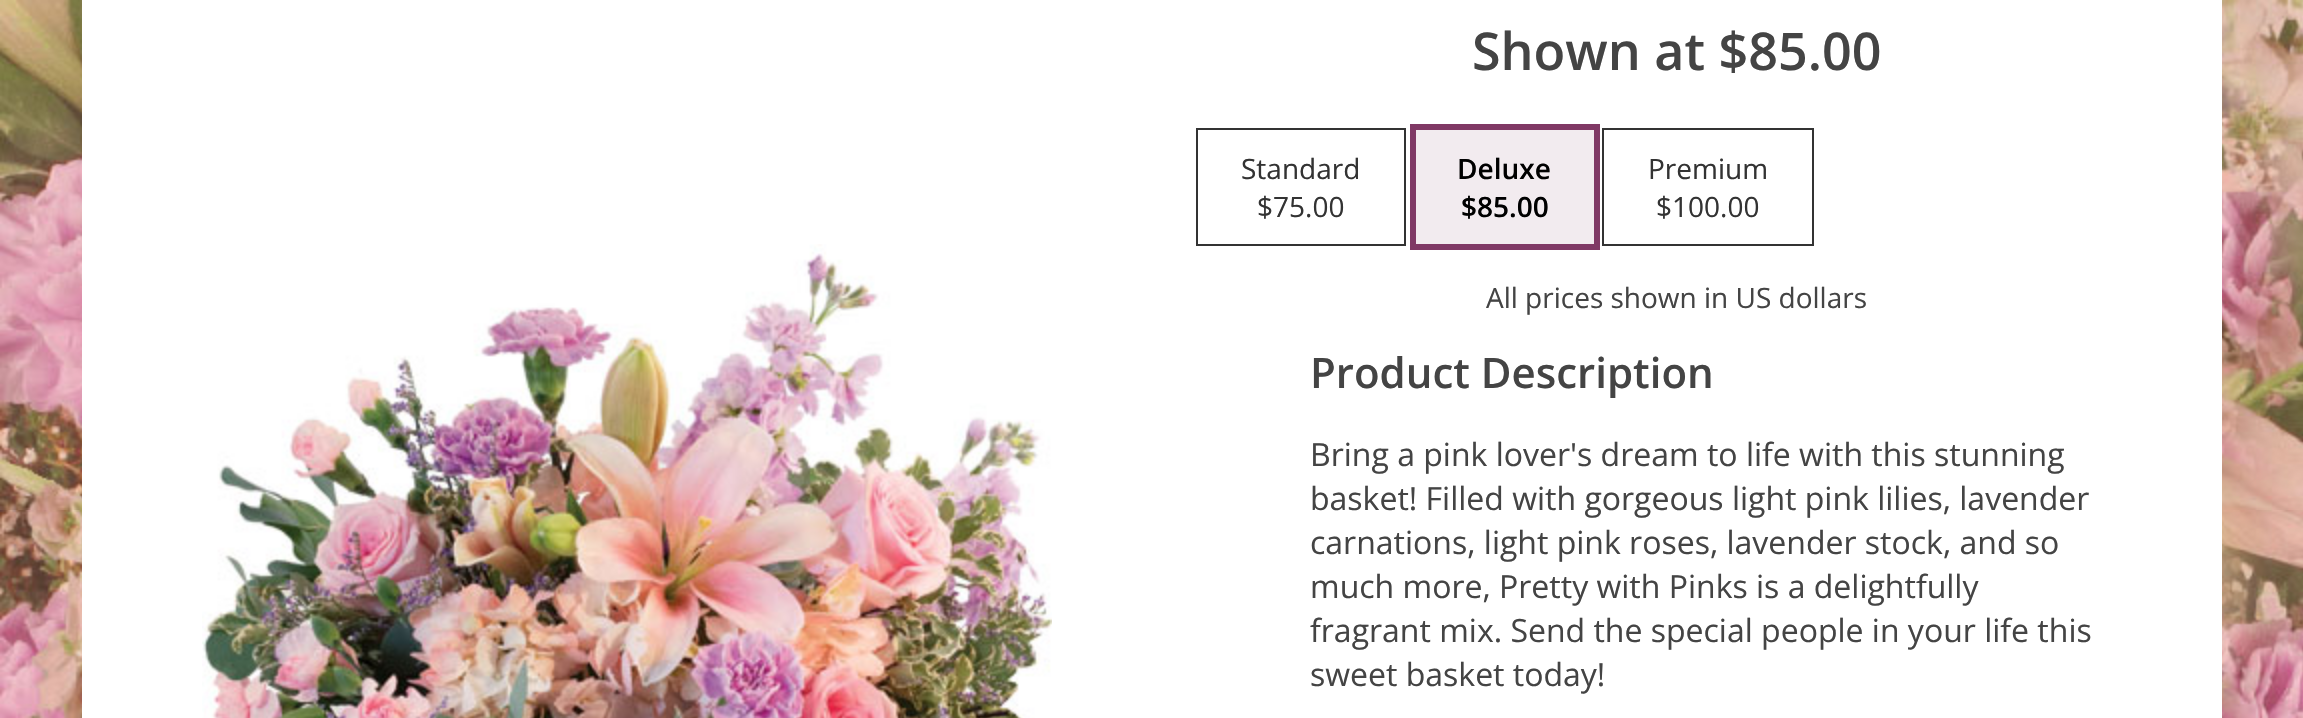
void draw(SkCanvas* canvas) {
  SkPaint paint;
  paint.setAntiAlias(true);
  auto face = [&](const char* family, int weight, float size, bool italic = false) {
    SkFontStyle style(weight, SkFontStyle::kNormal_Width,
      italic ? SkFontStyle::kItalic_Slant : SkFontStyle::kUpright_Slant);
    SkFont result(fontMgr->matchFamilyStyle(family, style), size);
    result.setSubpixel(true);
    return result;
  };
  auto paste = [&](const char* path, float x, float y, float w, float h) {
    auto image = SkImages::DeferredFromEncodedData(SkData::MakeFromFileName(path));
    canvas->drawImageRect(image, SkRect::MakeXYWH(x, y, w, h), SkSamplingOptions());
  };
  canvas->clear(0xffffffff);
  paste("img/1.png", 0, 0, 2303, 718);
  paint.setColor(0xffffffff);
  canvas->drawRect(SkRect::MakeXYWH(82, 0, 2140, 718), paint);
  paste("img/2.png", 202, 244, 850, 474);
  paint.setStroke(true);
  paint.setStrokeWidth(2);
  paint.setColor(0xff333333);
  canvas->drawRect(SkRect::MakeXYWH(1197, 129, 208, 116), paint);
  paint.setStrokeWidth(6);
  paint.setColor(0xff803965);
  canvas->drawRect(SkRect::MakeXYWH(1413, 127, 184, 120), paint);
  paint.setStroke(false);
  paint.setColor(0xfff2ebef);
  canvas->drawRect(SkRect::MakeXYWH(1416, 130, 178, 114), paint);
  paint.setStroke(true);
  paint.setStrokeWidth(2);
  paint.setColor(0xff333333);
  canvas->drawRect(SkRect::MakeXYWH(1603, 129, 210, 116), paint);
  auto f0 = face("Open Sans", 600, 52);
  paint.setStroke(false);
  paint.setColor(0xff444444);
  canvas->drawString("Shown at $85.00", 1472, 70, f0, paint);
  auto f1 = face("Open Sans", 400, 28);
  paint.setColor(0xff333333);
  canvas->drawString("Standard", 1241, 179, f1, paint);
  canvas->drawString("$75.00", 1257, 217, f1, paint);
  auto f2 = face("Open Sans", 600, 28);
  paint.setColor(0xff000000);
  canvas->drawString("Deluxe", 1457, 179, f2, paint);
  canvas->drawString("$85.00", 1461, 217, f2, paint);
  paint.setColor(0xff333333);
  canvas->drawString("Premium", 1648, 179, f1, paint);
  canvas->drawString("$100.00", 1656, 217, f1, paint);
  paint.setColor(0xff444444);
  canvas->drawString("All prices shown in US dollars", 1486, 308, f1, paint);
  auto f3 = face("Open Sans", 600, 42);
  canvas->drawString("Product Description", 1310, 388, f3, paint);
  auto f4 = face("Open Sans", 400, 32);
  {
    const struct { const char* s; float x, y; } items[] = {
      {"Bring a pink lover's dream to life with this stunning", 1310, 466},
      {"basket! Filled with gorgeous light pink lilies, lavender", 1310, 510},
      {"carnations, light pink roses, lavender stock, and so", 1310, 554},
      {"much more, Pretty with Pinks is a delightfully", 1310, 598},
      {"fragrant mix. Send the special people in your life this", 1310, 642},
      {"sweet basket today!", 1310, 686},
    };
    for (auto [s, x, y] : items) {
      canvas->drawString(s, x, y, f4, paint);
    }
  }
}
